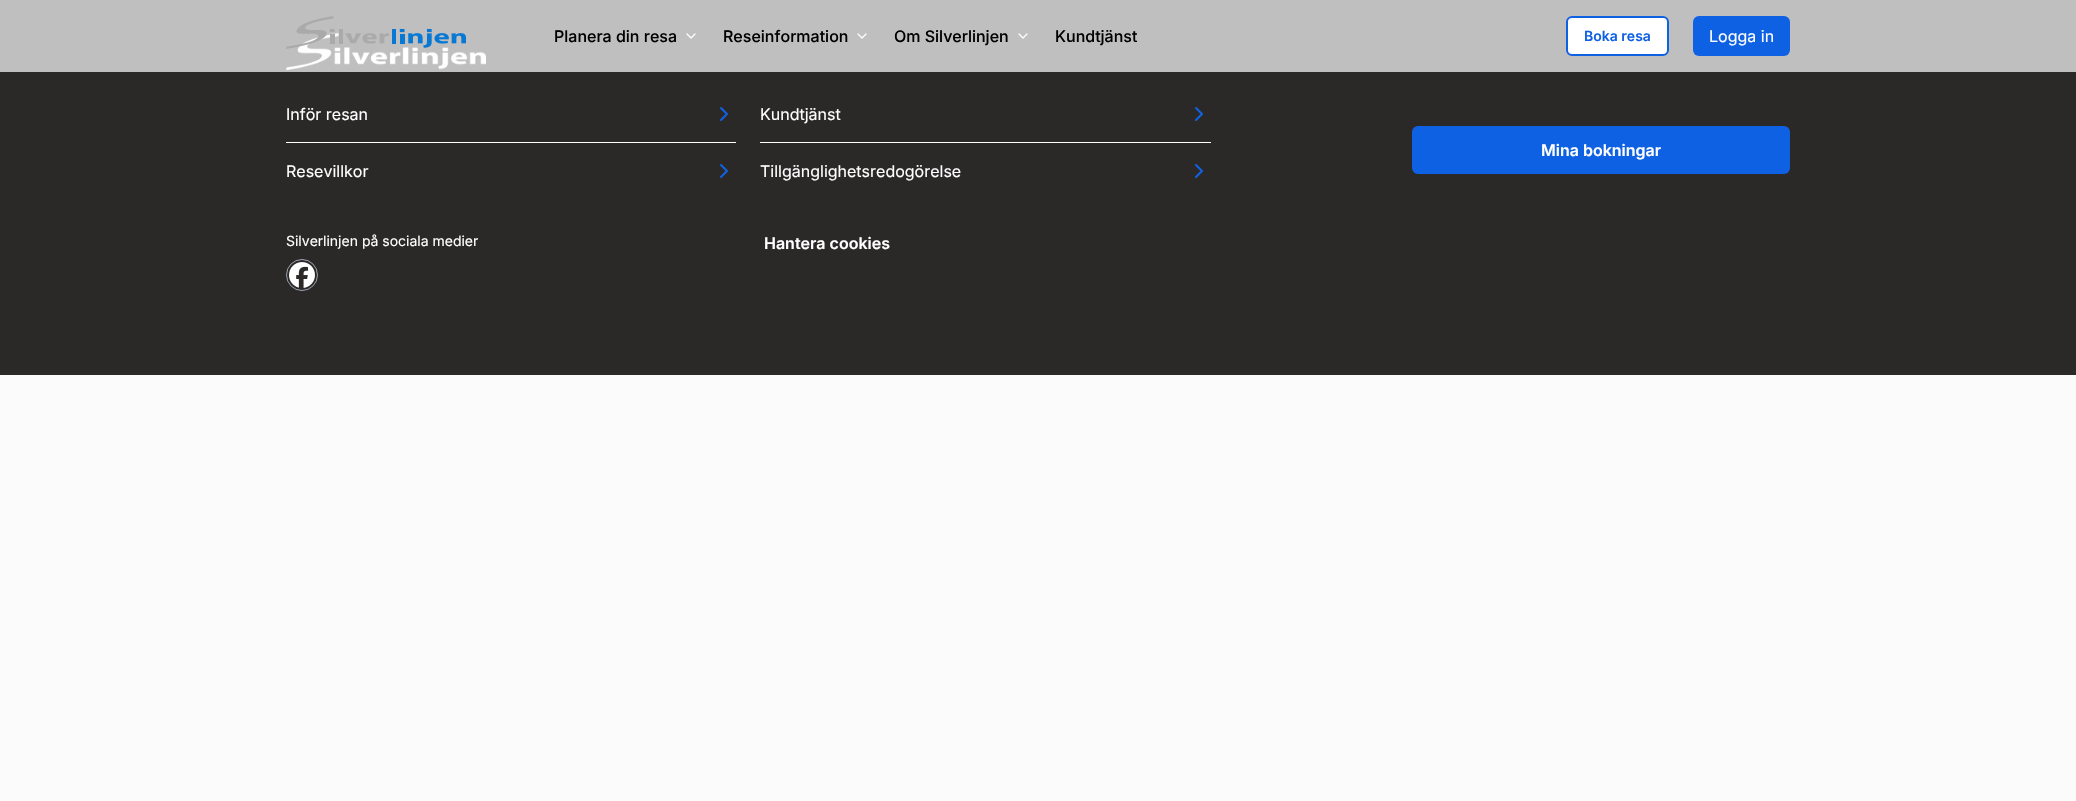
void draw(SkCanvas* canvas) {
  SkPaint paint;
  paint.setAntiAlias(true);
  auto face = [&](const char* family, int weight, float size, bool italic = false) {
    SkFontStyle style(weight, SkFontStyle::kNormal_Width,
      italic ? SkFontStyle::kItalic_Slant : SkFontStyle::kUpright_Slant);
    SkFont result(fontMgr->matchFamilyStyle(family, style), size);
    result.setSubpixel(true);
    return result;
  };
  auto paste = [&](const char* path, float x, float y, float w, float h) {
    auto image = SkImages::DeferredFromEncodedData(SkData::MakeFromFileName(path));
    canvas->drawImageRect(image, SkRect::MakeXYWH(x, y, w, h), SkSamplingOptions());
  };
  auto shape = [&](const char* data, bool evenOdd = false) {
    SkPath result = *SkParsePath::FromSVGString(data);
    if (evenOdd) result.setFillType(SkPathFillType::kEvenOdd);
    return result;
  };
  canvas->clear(0xfffbfbfb);
  paint.setColor(0xffbfbfbf);
  canvas->drawRect(SkRect::MakeXYWH(0, 0, 2076, 72), paint);
  paste("img/2.png", 286, 32, 200, 38);
  paste("img/1.png", 286, 16, 180, 33);
  paint.setStroke(true);
  paint.setStrokeWidth(1.3f);
  paint.setStrokeCap(SkPaint::kRound_Cap);
  paint.setStrokeJoin(SkPaint::kRound_Join);
  paint.setColor(0xffffffff);
  canvas->drawPath(shape("M687 34L691 38L695 34"), paint);
  canvas->drawPath(shape("M858 34L862 38L866 34"), paint);
  canvas->drawPath(shape("M1019 34L1023 38L1027 34"), paint);
  paint.setStroke(false);
  canvas->drawRoundRect(SkRect::MakeXYWH(1567, 17, 101, 38), 5, 5, paint);
  paint.setStroke(true);
  paint.setStrokeWidth(2);
  paint.setStrokeCap(SkPaint::kButt_Cap);
  paint.setStrokeJoin(SkPaint::kMiter_Join);
  paint.setColor(0xff0f61e3);
  canvas->drawRoundRect(SkRect::MakeXYWH(1567, 17, 101, 38), 5, 5, paint);
  paint.setStroke(false);
  canvas->drawRoundRect(SkRect::MakeXYWH(1693, 16, 97, 40), 6, 6, paint);
  paint.setColor(0xff2b2828);
  canvas->drawRect(SkRect::MakeXYWH(0, 72, 2076, 303), paint);
  paint.setColor(0xffffffff);
  canvas->drawRect(SkRect::MakeXYWH(286, 142, 450, 1), paint);
  paint.setStroke(true);
  paint.setStrokeCap(SkPaint::kRound_Cap);
  paint.setStrokeJoin(SkPaint::kRound_Join);
  paint.setColor(0xff0f61e3);
  canvas->drawPath(shape("M721 120L727 114L721 108"), paint);
  paint.setStroke(false);
  paint.setColor(0xffffffff);
  canvas->drawRect(SkRect::MakeXYWH(760, 142, 451, 1), paint);
  paint.setStroke(true);
  paint.setColor(0xff0f61e3);
  canvas->drawPath(shape("M1196 120L1202 114L1196 108"), paint);
  canvas->drawPath(shape("M721 177L727 171L721 165"), paint);
  canvas->drawPath(shape("M1196 177L1202 171L1196 165"), paint);
  paint.setStroke(false);
  canvas->drawRoundRect(SkRect::MakeXYWH(1412, 126, 378, 48), 6, 6, paint);
  paint.setStroke(true);
  paint.setStrokeWidth(1);
  paint.setStrokeCap(SkPaint::kButt_Cap);
  paint.setStrokeJoin(SkPaint::kMiter_Join);
  paint.setColor(0xff9ca3af);
  canvas->drawCircle(302, 275, 15.5f, paint);
  paste("img/3.png", 289, 262, 26, 26);
  auto f0 = face("Inter", 500, 16);
  paint.setStroke(false);
  paint.setColor(0xff000000);
  {
    const struct { const char* s; float x, y; } items[] = {
      {"Planera din resa", 554, 42},
      {"Reseinformation", 723, 42},
      {"Om Silverlinjen", 894, 42},
      {"Kundtjänst", 1055, 42},
    };
    for (auto [s, x, y] : items) {
      canvas->drawString(s, x, y, f0, paint);
    }
  }
  auto f1 = face("Inter", 600, 14);
  paint.setColor(0xff0f61e3);
  canvas->drawString("Boka resa", 1584, 41, f1, paint);
  auto f2 = face("Inter", 400, 16);
  paint.setColor(0xffffffff);
  {
    const struct { const char* s; float x, y; } items[] = {
      {"Logga in", 1709, 42},
      {"Inför resan", 286, 120},
      {"Kundtjänst", 760, 120},
      {"Resevillkor", 286, 177},
      {"Tillgänglighetsredogörelse", 760, 177},
    };
    for (auto [s, x, y] : items) {
      canvas->drawString(s, x, y, f2, paint);
    }
  }
  auto f3 = face("Inter", 600, 16);
  canvas->drawString("Mina bokningar", 1541, 156, f3, paint);
  auto f4 = face("Inter", 400, 14);
  canvas->drawString("Silverlinjen på sociala medier", 286, 246, f4, paint);
  canvas->drawString("Hantera cookies", 764, 249, f3, paint);
}
